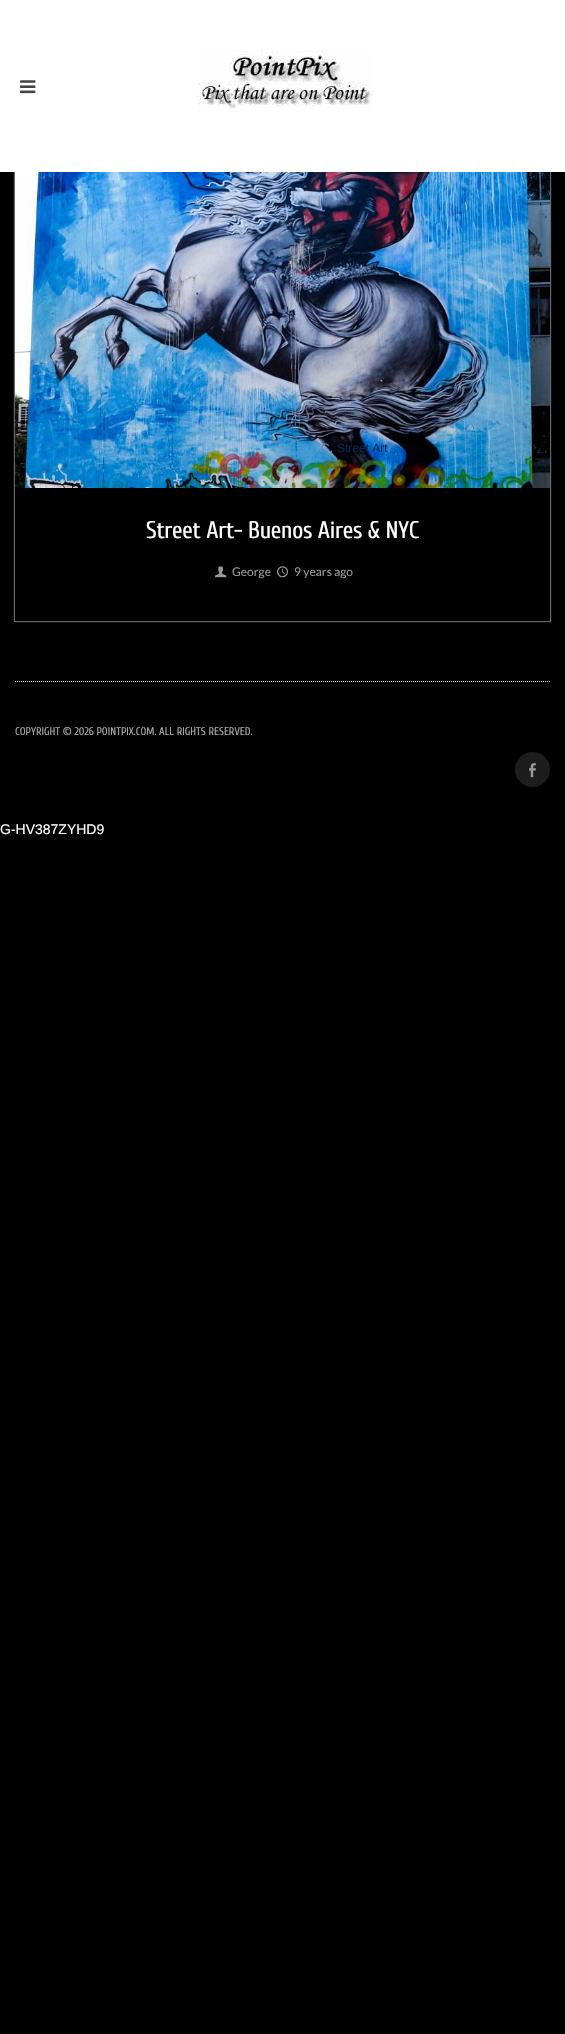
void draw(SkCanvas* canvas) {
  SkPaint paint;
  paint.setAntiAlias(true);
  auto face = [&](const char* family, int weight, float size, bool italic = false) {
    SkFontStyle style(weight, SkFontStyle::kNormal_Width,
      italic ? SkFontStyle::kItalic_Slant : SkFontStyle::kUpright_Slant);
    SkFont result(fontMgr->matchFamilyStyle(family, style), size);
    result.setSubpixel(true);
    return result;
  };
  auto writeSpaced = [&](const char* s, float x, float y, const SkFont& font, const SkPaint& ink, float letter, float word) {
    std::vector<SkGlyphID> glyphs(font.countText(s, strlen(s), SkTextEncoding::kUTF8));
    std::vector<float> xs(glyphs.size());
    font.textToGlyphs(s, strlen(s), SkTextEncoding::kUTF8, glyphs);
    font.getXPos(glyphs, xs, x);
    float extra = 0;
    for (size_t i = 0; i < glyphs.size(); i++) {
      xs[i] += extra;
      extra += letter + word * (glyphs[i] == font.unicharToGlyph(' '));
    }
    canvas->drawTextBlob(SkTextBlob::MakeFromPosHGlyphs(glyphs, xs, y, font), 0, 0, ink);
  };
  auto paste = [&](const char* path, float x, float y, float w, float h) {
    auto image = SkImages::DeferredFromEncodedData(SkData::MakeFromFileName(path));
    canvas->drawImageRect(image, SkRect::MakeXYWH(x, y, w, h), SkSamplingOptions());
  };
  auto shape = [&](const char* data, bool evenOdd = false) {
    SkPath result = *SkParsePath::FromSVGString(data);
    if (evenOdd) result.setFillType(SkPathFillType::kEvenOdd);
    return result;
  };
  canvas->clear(0xff000000);
  canvas->save();
  canvas->clipPath(shape("M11 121H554V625H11ZM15 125H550V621H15Z", true), true);
  paint.setColor(0x66ffffff);
  paint.setMaskFilter(SkMaskFilter::MakeBlur(kNormal_SkBlurStyle, 0.5f));
  canvas->drawRect(SkRect::MakeXYWH(14, 124, 537, 498), paint);
  paint.setMaskFilter(nullptr);
  canvas->restore();
  paint.setColor(0xffffffff);
  canvas->drawRect(SkRect::MakeXYWH(0, 0, 565, 172), paint);
  paste("img/1.png", 20, 80, 16, 14);
  paste("img/2.png", 197, 50, 176, 63);
  paste("img/3.png", 15, 172, 535, 316);
  paste("img/4.png", 215, 566, 12, 12);
  paste("img/5.png", 277, 566, 11, 12);
  paint.setStroke(true);
  paint.setStrokeWidth(1);
  paint.setColor(0xffcecece);
  paint.setPathEffect(SkDashPathEffect::Make({{1, 1}}, 0));
  canvas->drawPath(shape("M15 681.5H550"), paint);
  paint.setPathEffect(nullptr);
  paint.setStroke(false);
  paint.setColor(0xff1d1d1d);
  canvas->drawCircle(532.5f, 769.5f, 17.5f, paint);
  paste("img/6.png", 529, 763, 7, 15);
  auto f0 = face("Liberation Sans", 400, 12);
  paint.setColor(0xff48648c);
  canvas->drawString("0", 279, 223, f0, paint);
  paint.setColor(0xff4a8bbd);
  canvas->drawString("C,", 321, 452, f0, paint);
  paint.setColor(0xff072952);
  canvas->drawString("Street Art", 337, 452, f0, paint);
  auto f1 = face("Cuprum", 400, 24);
  paint.setColor(0xffffffff);
  writeSpaced("Street Art- Buenos Aires & NYC", 146, 538, f1, paint, -0.3f, 0);
  auto f2 = face("Lato", 400, 12);
  paint.setColor(0xff999999);
  canvas->drawString("George", 232, 576, f2, paint);
  canvas->drawString("9 years ago", 294, 576, f2, paint);
  auto f3 = face("Cuprum", 400, 11);
  paint.setColor(0xffa7a7a7);
  canvas->drawString("COPYRIGHT © 2026 POINTPIX.COM. ALL RIGHTS RESERVED.", 15, 735, f3, paint);
  auto f4 = face("Liberation Sans", 400, 14);
  paint.setColor(0xffffffff);
  canvas->drawString("G-HV387ZYHD9", 0, 834, f4, paint);
}
